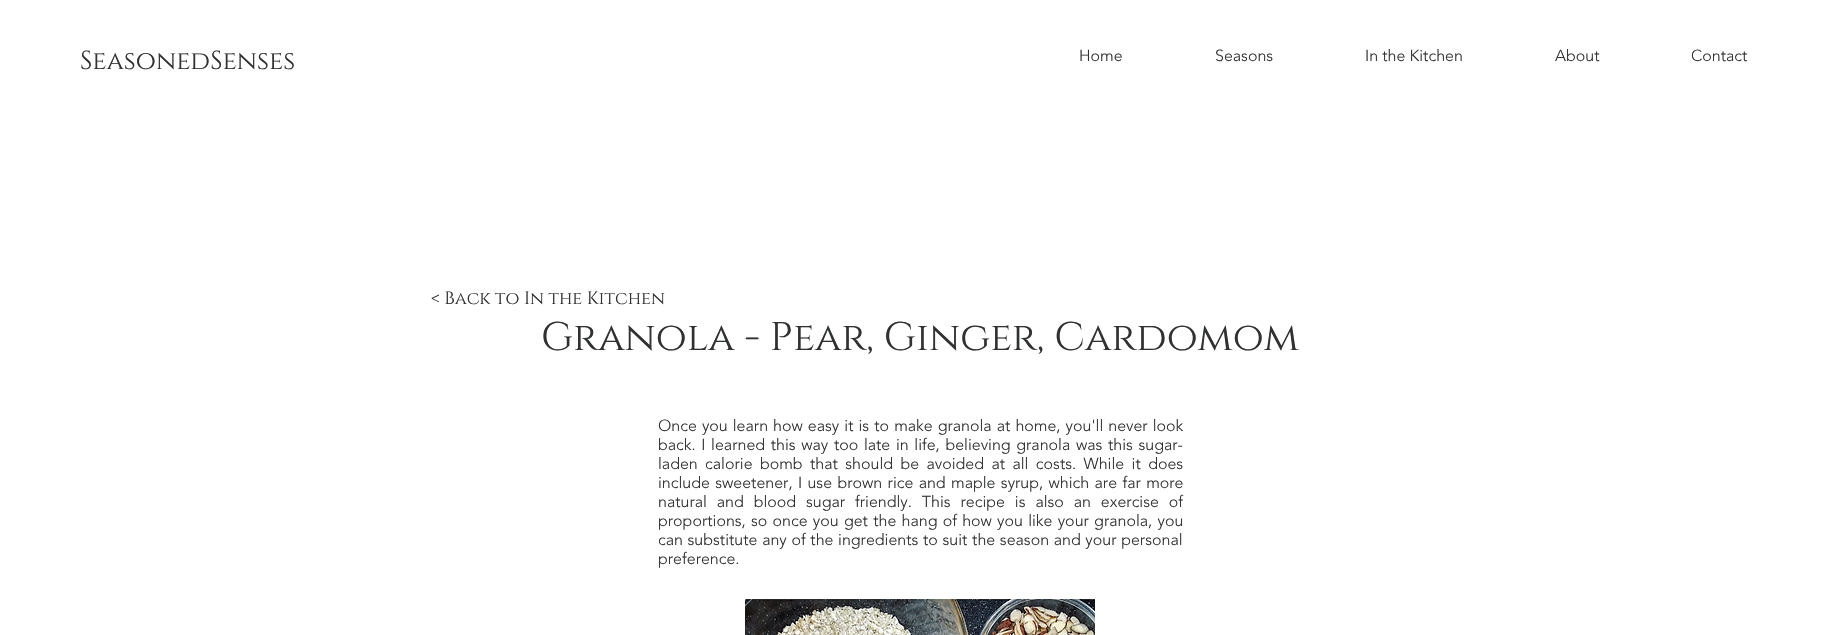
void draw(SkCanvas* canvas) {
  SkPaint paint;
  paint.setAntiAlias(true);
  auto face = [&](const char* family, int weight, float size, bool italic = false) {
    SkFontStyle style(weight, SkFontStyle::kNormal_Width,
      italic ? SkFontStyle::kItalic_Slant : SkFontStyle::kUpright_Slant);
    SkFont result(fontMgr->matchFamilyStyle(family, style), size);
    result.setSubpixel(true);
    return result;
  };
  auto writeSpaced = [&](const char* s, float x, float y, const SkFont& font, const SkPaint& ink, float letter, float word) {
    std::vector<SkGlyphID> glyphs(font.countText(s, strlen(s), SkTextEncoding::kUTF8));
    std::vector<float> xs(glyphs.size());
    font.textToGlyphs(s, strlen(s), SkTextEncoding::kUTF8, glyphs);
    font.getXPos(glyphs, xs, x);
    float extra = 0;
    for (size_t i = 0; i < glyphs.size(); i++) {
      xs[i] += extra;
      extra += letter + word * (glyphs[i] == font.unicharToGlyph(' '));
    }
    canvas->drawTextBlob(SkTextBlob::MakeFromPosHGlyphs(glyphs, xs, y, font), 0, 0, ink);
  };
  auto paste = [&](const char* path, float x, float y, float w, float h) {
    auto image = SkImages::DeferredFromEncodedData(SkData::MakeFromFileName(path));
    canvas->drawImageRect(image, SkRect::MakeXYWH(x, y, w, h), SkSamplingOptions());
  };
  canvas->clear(0xffffffff);
  paste("img/1.png", 745, 599, 350, 36);
  auto f0 = face("Cinzel", 400, 26);
  paint.setColor(0xff303131);
  canvas->drawString("SeasonedSenses", 80, 69, f0, paint);
  auto f1 = face("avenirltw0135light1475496", 300, 16);
  {
    const struct { const char* s; float x, y; } items[] = {
      {"Home", 1079, 61},
      {"Seasons", 1215, 61},
      {"In the Kitchen", 1365, 61},
      {"About", 1555, 61},
      {"Contact", 1691, 61},
    };
    for (auto [s, x, y] : items) {
      canvas->drawString(s, x, y, f1, paint);
    }
  }
  auto f2 = face("Cinzel", 400, 18);
  canvas->drawString("< Back to In the Kitchen", 431, 304, f2, paint);
  auto f3 = face("Cinzel", 400, 40);
  canvas->drawString("Granola - Pear, Ginger, Cardomom", 541, 350, f3, paint);
  writeSpaced("Once you learn how easy it is to make granola at home, you'll never look", 658, 431, f1, paint, 0, 0.9f);
  writeSpaced("back. I learned this way too late in life, believing granola was this sugar-", 658, 450, f1, paint, 0, 1.5f);
  writeSpaced("laden calorie bomb that should be avoided at all costs. While it does", 658, 469, f1, paint, 0, 3.25f);
  writeSpaced("include sweetener, I use brown rice and maple syrup, which are far more", 658, 488, f1, paint, 0, 1.2f);
  writeSpaced("natural and blood sugar friendly. This recipe is also an exercise of", 658, 507, f1, paint, 0, 5.75f);
  writeSpaced("proportions, so once you get the hang of how you like your granola, you", 658, 526, f1, paint, 0, 1.1f);
  writeSpaced("can substitute any of the ingredients to suit the season and your personal", 658, 545, f1, paint, 0, 0.5f);
  canvas->drawString("preference.", 658, 564, f1, paint);
}
